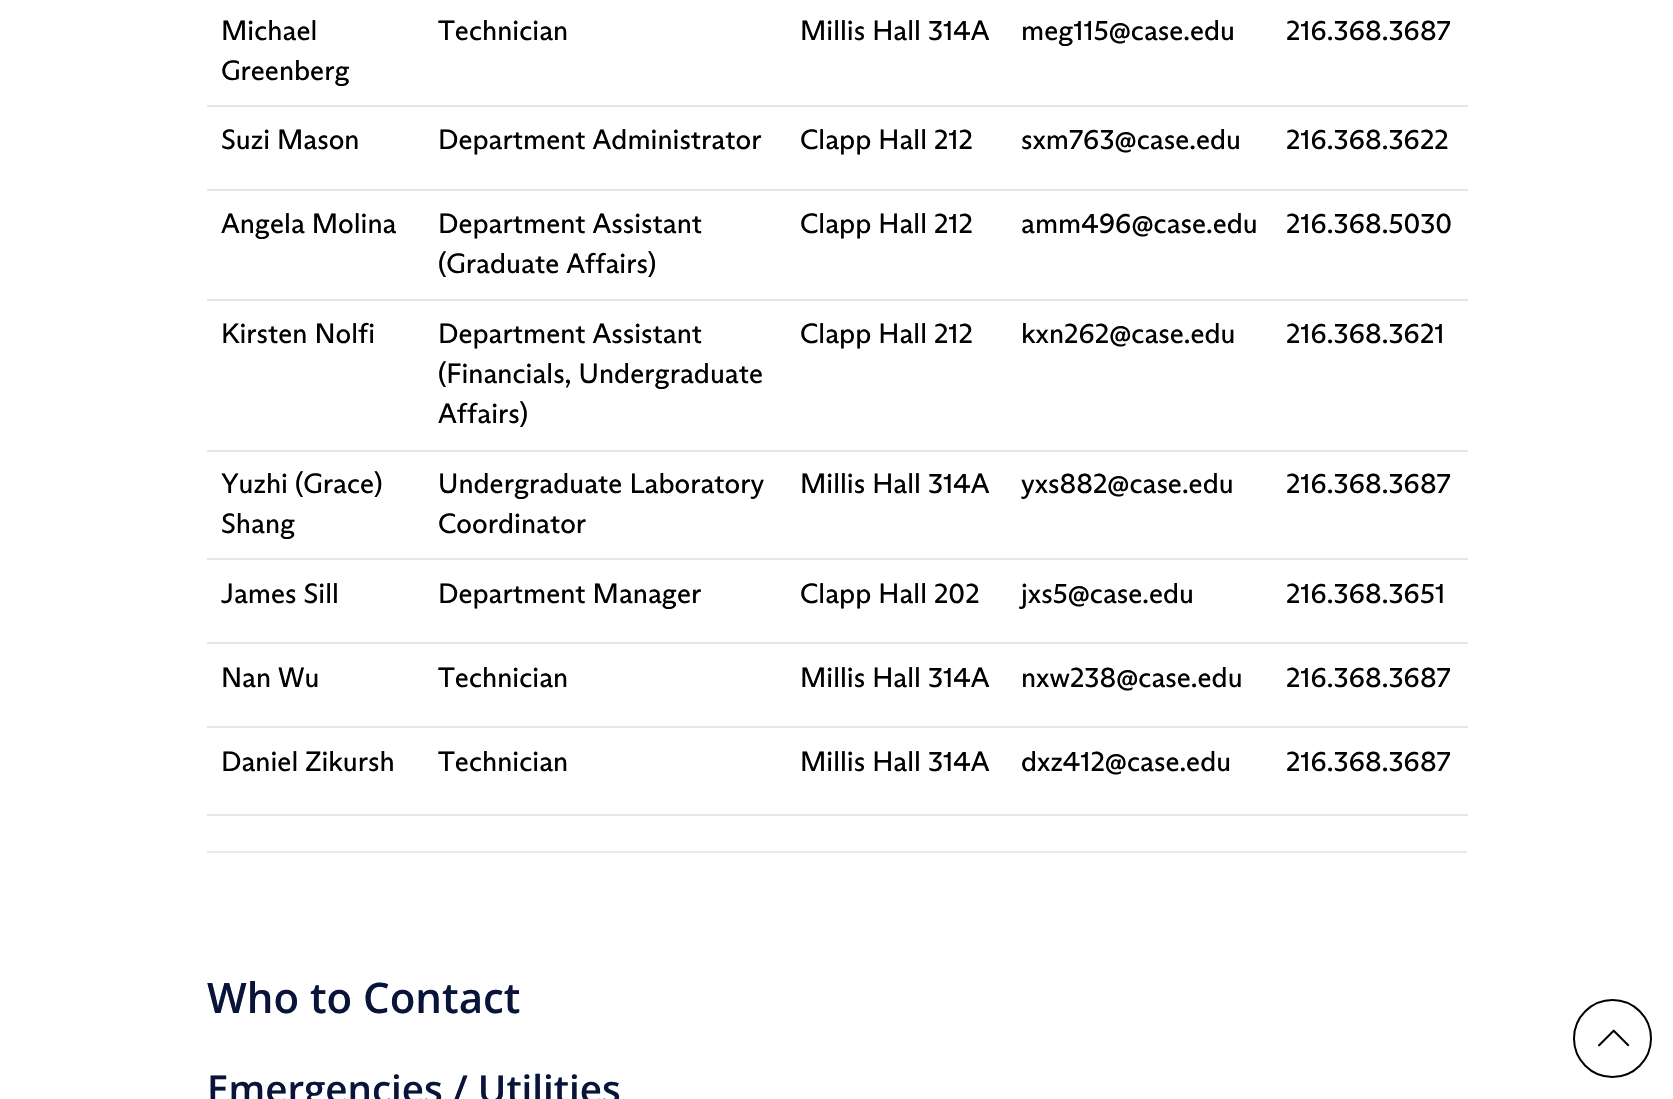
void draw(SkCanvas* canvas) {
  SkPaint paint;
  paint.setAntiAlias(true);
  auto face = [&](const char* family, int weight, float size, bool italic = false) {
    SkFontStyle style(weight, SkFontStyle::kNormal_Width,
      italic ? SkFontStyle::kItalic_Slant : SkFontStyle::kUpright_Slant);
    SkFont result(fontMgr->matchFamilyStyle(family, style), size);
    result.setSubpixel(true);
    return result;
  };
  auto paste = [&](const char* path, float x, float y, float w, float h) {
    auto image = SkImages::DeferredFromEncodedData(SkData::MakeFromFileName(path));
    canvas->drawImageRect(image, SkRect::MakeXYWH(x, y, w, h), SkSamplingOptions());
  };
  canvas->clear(0xffffffff);
  {
    const struct { float x, y, w, h; SkColor color; } items[] = {
      {207, 105, 1261, 2, 0xffe6e6e6},
      {207, 189, 1261, 2, 0xffe6e6e6},
      {207, 299, 1261, 2, 0xffe6e6e6},
      {207, 450, 1261, 2, 0xffe6e6e6},
      {207, 558, 1261, 2, 0xffe6e6e6},
      {207, 642, 1261, 2, 0xffe6e6e6},
      {207, 726, 1261, 2, 0xffe6e6e6},
      {207, 814, 1261, 2, 0xffe6e6e6},
      {207, 851, 1260, 2, 0xffe8e8e8},
    };
    for (auto [x, y, w, h, color] : items) {
      paint.setColor(color);
      canvas->drawRect(SkRect::MakeXYWH(x, y, w, h), paint);
    }
  }
  paint.setStroke(true);
  paint.setStrokeWidth(2);
  paint.setColor(0xff000000);
  canvas->drawCircle(1612.5f, 1038.5f, 38.5f, paint);
  paste("img/1.png", 1598, 1029, 32, 18);
  auto f0 = face("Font", 400, 28);
  paint.setStroke(false);
  {
    const struct { const char* s; float x, y; } items[] = {
      {"Michael", 221, 40},
      {"Greenberg", 221, 80},
      {"Technician", 438, 40},
      {"Millis Hall 314A", 800, 40},
      {"meg115@case.edu", 1021, 40},
      {"216.368.3687", 1286, 40},
      {"Suzi Mason", 221, 149},
      {"Department Administrator", 438, 149},
      {"Clapp Hall 212", 800, 149},
      {"sxm763@case.edu", 1021, 149},
      {"216.368.3622", 1286, 149},
      {"Angela Molina", 221, 233},
      {"Department Assistant", 438, 233},
      {"(Graduate Affairs)", 438, 273},
      {"Clapp Hall 212", 800, 233},
      {"amm496@case.edu", 1021, 233},
      {"216.368.5030", 1286, 233},
      {"Kirsten Nolfi", 221, 343},
      {"Department Assistant", 438, 343},
      {"(Financials, Undergraduate", 438, 383},
      {"Affairs)", 438, 423},
      {"Clapp Hall 212", 800, 343},
      {"kxn262@case.edu", 1021, 343},
      {"216.368.3621", 1286, 343},
      {"Yuzhi (Grace)", 221, 493},
      {"Shang", 221, 533},
      {"Undergraduate Laboratory", 438, 493},
      {"Coordinator", 438, 533},
      {"Millis Hall 314A", 800, 493},
      {"yxs882@case.edu", 1021, 493},
      {"216.368.3687", 1286, 493},
      {"James Sill", 221, 603},
      {"Department Manager", 438, 603},
      {"Clapp Hall 202", 800, 603},
      {"jxs5@case.edu", 1021, 603},
      {"216.368.3651", 1286, 603},
      {"Nan Wu", 221, 687},
      {"Technician", 438, 687},
      {"Millis Hall 314A", 800, 687},
      {"nxw238@case.edu", 1021, 687},
      {"216.368.3687", 1286, 687},
      {"Daniel Zikursh", 221, 771},
      {"Technician", 438, 771},
      {"Millis Hall 314A", 800, 771},
      {"dxz412@case.edu", 1021, 771},
      {"216.368.3687", 1286, 771},
    };
    for (auto [s, x, y] : items) {
      canvas->drawString(s, x, y, f0, paint);
    }
  }
  auto f1 = face("Open Sans", 600, 42);
  paint.setColor(0xff09143a);
  canvas->drawString("Who to Contact", 207, 1013, f1, paint);
  auto f2 = face("Open Sans", 600, 38.5f);
  canvas->drawString("Emergencies / Utilities", 207, 1103, f2, paint);
}
